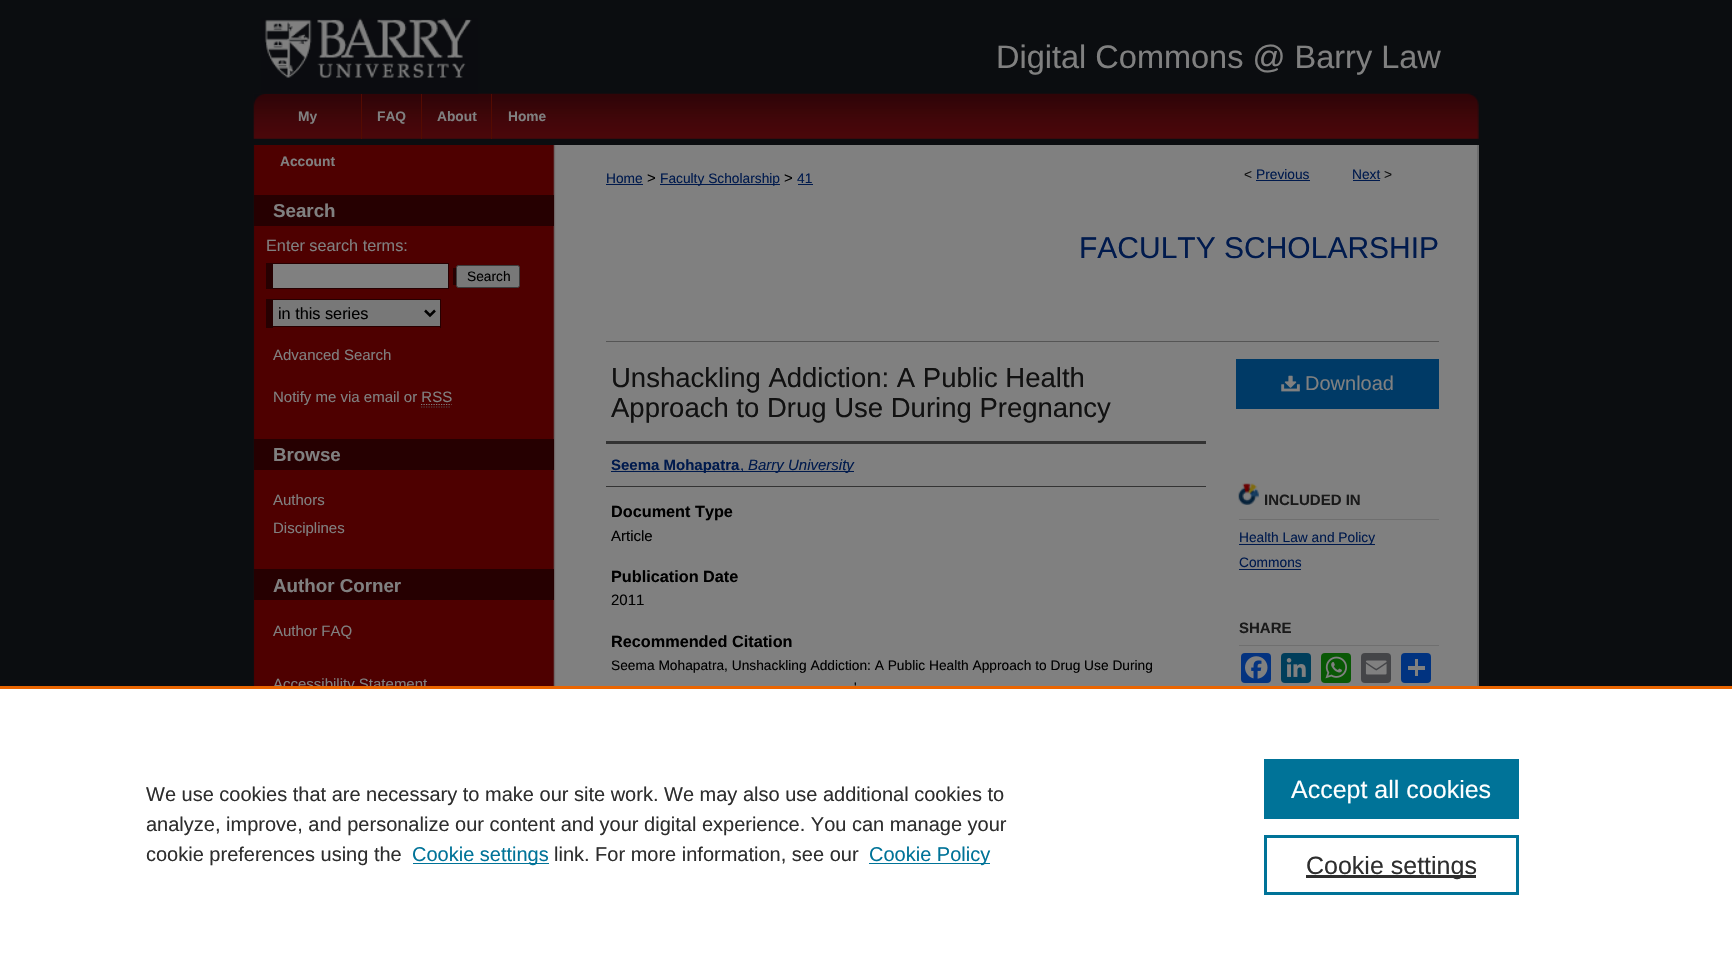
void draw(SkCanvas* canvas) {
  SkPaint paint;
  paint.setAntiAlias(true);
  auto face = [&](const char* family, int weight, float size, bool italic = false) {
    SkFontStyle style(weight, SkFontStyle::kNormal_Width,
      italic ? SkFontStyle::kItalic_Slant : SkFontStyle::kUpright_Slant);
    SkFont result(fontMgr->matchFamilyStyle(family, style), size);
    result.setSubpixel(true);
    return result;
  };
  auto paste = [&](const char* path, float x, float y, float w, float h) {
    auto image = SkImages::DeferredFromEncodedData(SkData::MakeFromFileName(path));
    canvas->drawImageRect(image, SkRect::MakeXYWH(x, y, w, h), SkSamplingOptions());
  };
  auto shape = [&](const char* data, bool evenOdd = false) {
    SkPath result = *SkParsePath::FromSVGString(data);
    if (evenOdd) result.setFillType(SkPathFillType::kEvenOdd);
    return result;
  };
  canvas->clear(0xff0b0d10);
  paste("img/2.png", 253, 93, 1226, 46);
  paste("img/1.png", 261, 18, 218, 76);
  {
    const struct { float x, y, w, h; SkColor color; } items[] = {
      {361, 94, 1, 45, 0xff540b01},
      {421, 94, 1, 45, 0xff540b01},
      {491, 94, 1, 45, 0xff540b01},
      {1478, 145, 1, 541, 0xff808080},
    };
    for (auto [x, y, w, h, color] : items) {
      paint.setColor(color);
      canvas->drawRect(SkRect::MakeXYWH(x, y, w, h), paint);
    }
  }
  paste("img/3.png", 253, 145, 1226, 541);
  {
    const struct { float x, y, w, h; SkColor color; } items[] = {
      {254, 195, 300, 31, 0xff260001},
      {266, 263, 183, 26, 0xff260001},
      {453, 268, 3, 17, 0xff260001},
      {273, 264, 175, 24, 0xff808080},
    };
    for (auto [x, y, w, h, color] : items) {
      paint.setColor(color);
      canvas->drawRect(SkRect::MakeXYWH(x, y, w, h), paint);
    }
  }
  paint.setColor(0xff787878);
  canvas->drawRoundRect(SkRect::MakeXYWH(456.5f, 265.5f, 63, 22), 2, 2, paint);
  paint.setStroke(true);
  paint.setStrokeWidth(1);
  paint.setColor(0xff3b3b3b);
  canvas->drawRoundRect(SkRect::MakeXYWH(456.5f, 265.5f, 63, 22), 2, 2, paint);
  paint.setStroke(false);
  {
    const struct { float x, y, w, h; SkColor color; } items[] = {
      {273, 300, 167, 26, 0xff787878},
      {266, 299, 175, 1, 0xff260001},
      {440, 299, 1, 29, 0xff260001},
      {266, 326, 175, 1, 0xff260001},
      {266, 299, 7, 29, 0xff260001},
    };
    for (auto [x, y, w, h, color] : items) {
      paint.setColor(color);
      canvas->drawRect(SkRect::MakeXYWH(x, y, w, h), paint);
    }
  }
  paint.setStroke(true);
  paint.setStrokeWidth(2.5f);
  paint.setColor(0xff000000);
  canvas->drawPath(shape("M425 310.5L430 315.5L435 310.5"), paint);
  paint.setStrokeWidth(1.2f);
  paint.setColor(0xff808080);
  paint.setPathEffect(SkDashPathEffect::Make({{1.25f, 1.25f}}, 0));
  canvas->drawPath(shape("M421 404.5H451.5"), paint);
  paint.setPathEffect(nullptr);
  paint.setColor(0xff4d4d4d);
  paint.setPathEffect(SkDashPathEffect::Make({{1.25f, 1.25f}}, 0));
  canvas->drawPath(shape("M421 407H451"), paint);
  paint.setPathEffect(nullptr);
  paint.setStroke(false);
  {
    const struct { float x, y, w, h; SkColor color; } items[] = {
      {254, 439, 300, 31, 0xff260001},
      {254, 569, 300, 31, 0xff260001},
      {606, 184, 37, 1, 0xff001a4d},
      {660, 184, 120, 1, 0xff001a4d},
      {798, 184, 15, 1, 0xff001a4d},
      {1256, 180, 54, 1, 0xff001a4d},
      {1353, 180, 27, 1, 0xff001a4d},
      {606, 341, 833, 1, 0xff555555},
      {606, 441, 600, 3, 0xff333333},
      {606, 486, 600, 1, 0xff333333},
      {611, 471, 243, 1, 0xff001a4d},
      {1236, 359, 203, 50, 0xff003a66},
    };
    for (auto [x, y, w, h, color] : items) {
      paint.setColor(color);
      canvas->drawRect(SkRect::MakeXYWH(x, y, w, h), paint);
    }
  }
  paste("img/4.png", 1281, 375, 19, 17);
  paste("img/5.png", 1238, 483, 21, 22);
  {
    const struct { float x, y, w, h; SkColor color; } items[] = {
      {1239, 519, 200, 1, 0xff6f6f6f},
      {1239, 544, 136, 1, 0xff001a4d},
      {1239, 569, 62, 1, 0xff001a4d},
      {1239, 645, 200, 1, 0xff6f6f6f},
    };
    for (auto [x, y, w, h, color] : items) {
      paint.setColor(color);
      canvas->drawRect(SkRect::MakeXYWH(x, y, w, h), paint);
    }
  }
  paint.setColor(0xff043380);
  canvas->drawRoundRect(SkRect::MakeXYWH(1241, 653, 30, 30), 4, 4, paint);
  paste("img/6.png", 1245, 656, 23, 23);
  paint.setColor(0xff003e5b);
  canvas->drawRoundRect(SkRect::MakeXYWH(1281, 653, 30, 30), 4, 4, paint);
  paste("img/7.png", 1286, 658, 20, 19);
  paint.setColor(0xff095805);
  canvas->drawRoundRect(SkRect::MakeXYWH(1321, 653, 30, 30), 4, 4, paint);
  paste("img/8.png", 1325, 656, 22, 23);
  paint.setColor(0xff444548);
  canvas->drawRoundRect(SkRect::MakeXYWH(1361, 653, 30, 30), 4, 4, paint);
  paste("img/9.png", 1365, 660, 22, 15);
  paint.setColor(0xff013380);
  canvas->drawRoundRect(SkRect::MakeXYWH(1401, 653, 30, 30), 4, 4, paint);
  paint.setColor(0xff808080);
  canvas->drawRect(SkRect::MakeXYWH(1415, 659, 3, 17), paint);
  canvas->drawRect(SkRect::MakeXYWH(1408, 666, 17, 4), paint);
  auto f0 = face("Liberation Sans", 400, 32.5f);
  canvas->drawString("Digital Commons @ Barry Law", 996, 68, f0, paint);
  auto f1 = face("Liberation Sans", 700, 13.75f);
  {
    const struct { const char* s; float x, y; } items[] = {
      {"My", 298, 121},
      {"Account", 280, 166},
      {"FAQ", 377, 121},
      {"About", 437, 121},
      {"Home", 508, 121},
    };
    for (auto [s, x, y] : items) {
      canvas->drawString(s, x, y, f1, paint);
    }
  }
  auto f2 = face("Liberation Sans", 700, 18.75f);
  canvas->drawString("Search", 273, 217, f2, paint);
  auto f3 = face("Liberation Sans", 400, 16.25f);
  canvas->drawString("Enter search terms:", 266, 251, f3, paint);
  auto f4 = face("Liberation Sans", 400, 13.75f);
  paint.setColor(0xff000000);
  canvas->drawString("Search", 467, 281, f4, paint);
  canvas->drawString("in this series", 278, 319, f3, paint);
  auto f5 = face("Liberation Sans", 400, 15);
  paint.setColor(0xff808080);
  canvas->drawString("Advanced Search", 273, 360, f5, paint);
  canvas->drawString("Notify me via email or RSS", 273, 402, f5, paint);
  canvas->drawString("Browse", 273, 461, f2, paint);
  canvas->drawString("Authors", 273, 505, f5, paint);
  canvas->drawString("Disciplines", 273, 533, f5, paint);
  canvas->drawString("Author Corner", 273, 592, f2, paint);
  canvas->drawString("Author FAQ", 273, 636, f5, paint);
  canvas->drawString("Accessibility Statement", 273, 689, f5, paint);
  paint.setColor(0xff001a4d);
  canvas->drawString("Home", 606, 183, f4, paint);
  paint.setColor(0xff000000);
  canvas->drawString(">", 647, 183, f5, paint);
  paint.setColor(0xff001a4d);
  canvas->drawString("Faculty Scholarship", 660, 183, f4, paint);
  paint.setColor(0xff000000);
  canvas->drawString(">", 784, 183, f5, paint);
  paint.setColor(0xff001a4d);
  canvas->drawString("41", 797, 183, f4, paint);
  paint.setColor(0xff111111);
  canvas->drawString("<", 1244, 179, f4, paint);
  paint.setColor(0xff001a4d);
  canvas->drawString("Previous", 1256, 179, f4, paint);
  canvas->drawString("Next", 1352, 179, f4, paint);
  paint.setColor(0xff111111);
  canvas->drawString(">", 1384, 179, f4, paint);
  auto f6 = face("Liberation Sans", 400, 30);
  paint.setColor(0xff001a4d);
  canvas->drawString("FACULTY SCHOLARSHIP", 1079, 258, f6, paint);
  auto f7 = face("Liberation Sans", 400, 27.5f);
  paint.setColor(0xff111111);
  canvas->drawString("Unshackling Addiction: A Public Health", 611, 387, f7, paint);
  canvas->drawString("Approach to Drug Use During Pregnancy", 611, 417, f7, paint);
  auto f8 = face("Liberation Sans", 700, 15);
  paint.setColor(0xff001a4d);
  canvas->drawString("Seema Mohapatra", 611, 470, f8, paint);
  canvas->drawString(",", 740, 470, f5, paint);
  auto f9 = face("Liberation Sans", 400, 15, true);
  canvas->drawString("Barry University", 748, 470, f9, paint);
  auto f10 = face("Liberation Sans", 700, 16.25f);
  paint.setColor(0xff000000);
  canvas->drawString("Document Type", 611, 517, f10, paint);
  canvas->drawString("Article", 611, 541, f5, paint);
  canvas->drawString("Publication Date", 611, 582, f10, paint);
  canvas->drawString("2011", 611, 605, f5, paint);
  canvas->drawString("Recommended Citation", 611, 647, f10, paint);
  canvas->drawString("Seema Mohapatra, Unshackling Addiction: A Public Health Approach to Drug Use During", 611, 670, f4, paint);
  canvas->drawString("'", 854, 692, f4, paint);
  auto f11 = face("Liberation Sans", 400, 20);
  paint.setColor(0xff808080);
  canvas->drawString("Download", 1305, 390, f11, paint);
  paint.setColor(0xff1a1a1a);
  canvas->drawString("INCLUDED IN", 1264, 505, f8, paint);
  paint.setColor(0xff001a4d);
  canvas->drawString("Health Law and Policy", 1239, 542, f4, paint);
  canvas->drawString("Commons", 1239, 567, f4, paint);
  paint.setColor(0xff1a1a1a);
  canvas->drawString("SHARE", 1239, 633, f8, paint);
  paint.setColor(0xffffffff);
  canvas->drawRect(SkRect::MakeXYWH(0, 689, 1732, 272), paint);
  paint.setColor(0xffeb6500);
  canvas->drawRect(SkRect::MakeXYWH(0, 686, 1732, 3), paint);
  paint.setColor(0xff2e2e2e);
  {
    const struct { const char* s; float x, y; } items[] = {
      {"We use cookies that are necessary to make our site work. We may also use additional cookies to", 146, 801},
      {"analyze, improve, and personalize our content and your digital experience. You can manage your", 146, 831},
      {"cookie preferences using the", 146, 861},
    };
    for (auto [s, x, y] : items) {
      canvas->drawString(s, x, y, f11, paint);
    }
  }
  paint.setColor(0xff007398);
  canvas->drawRect(SkRect::MakeXYWH(413, 863, 136, 1), paint);
  canvas->drawString("Cookie settings", 412, 861, f11, paint);
  paint.setColor(0xff2e2e2e);
  canvas->drawString("link. For more information, see our", 554, 861, f11, paint);
  paint.setColor(0xff007398);
  canvas->drawRect(SkRect::MakeXYWH(869, 863, 121, 1), paint);
  canvas->drawString("Cookie Policy", 869, 861, f11, paint);
  canvas->drawRect(SkRect::MakeXYWH(1264, 759, 255, 60), paint);
  auto f12 = face("Liberation Sans", 400, 25);
  paint.setColor(0xffffffff);
  canvas->drawString("Accept all cookies", 1291, 798, f12, paint);
  paint.setStroke(true);
  paint.setStrokeWidth(3);
  paint.setColor(0xff007398);
  canvas->drawRect(SkRect::MakeXYWH(1265.5f, 836.5f, 252, 57), paint);
  paint.setStroke(false);
  paint.setColor(0xff2e2e2e);
  canvas->drawRect(SkRect::MakeXYWH(1306, 875, 170, 3), paint);
  canvas->drawString("Cookie settings", 1306, 874, f12, paint);
}
